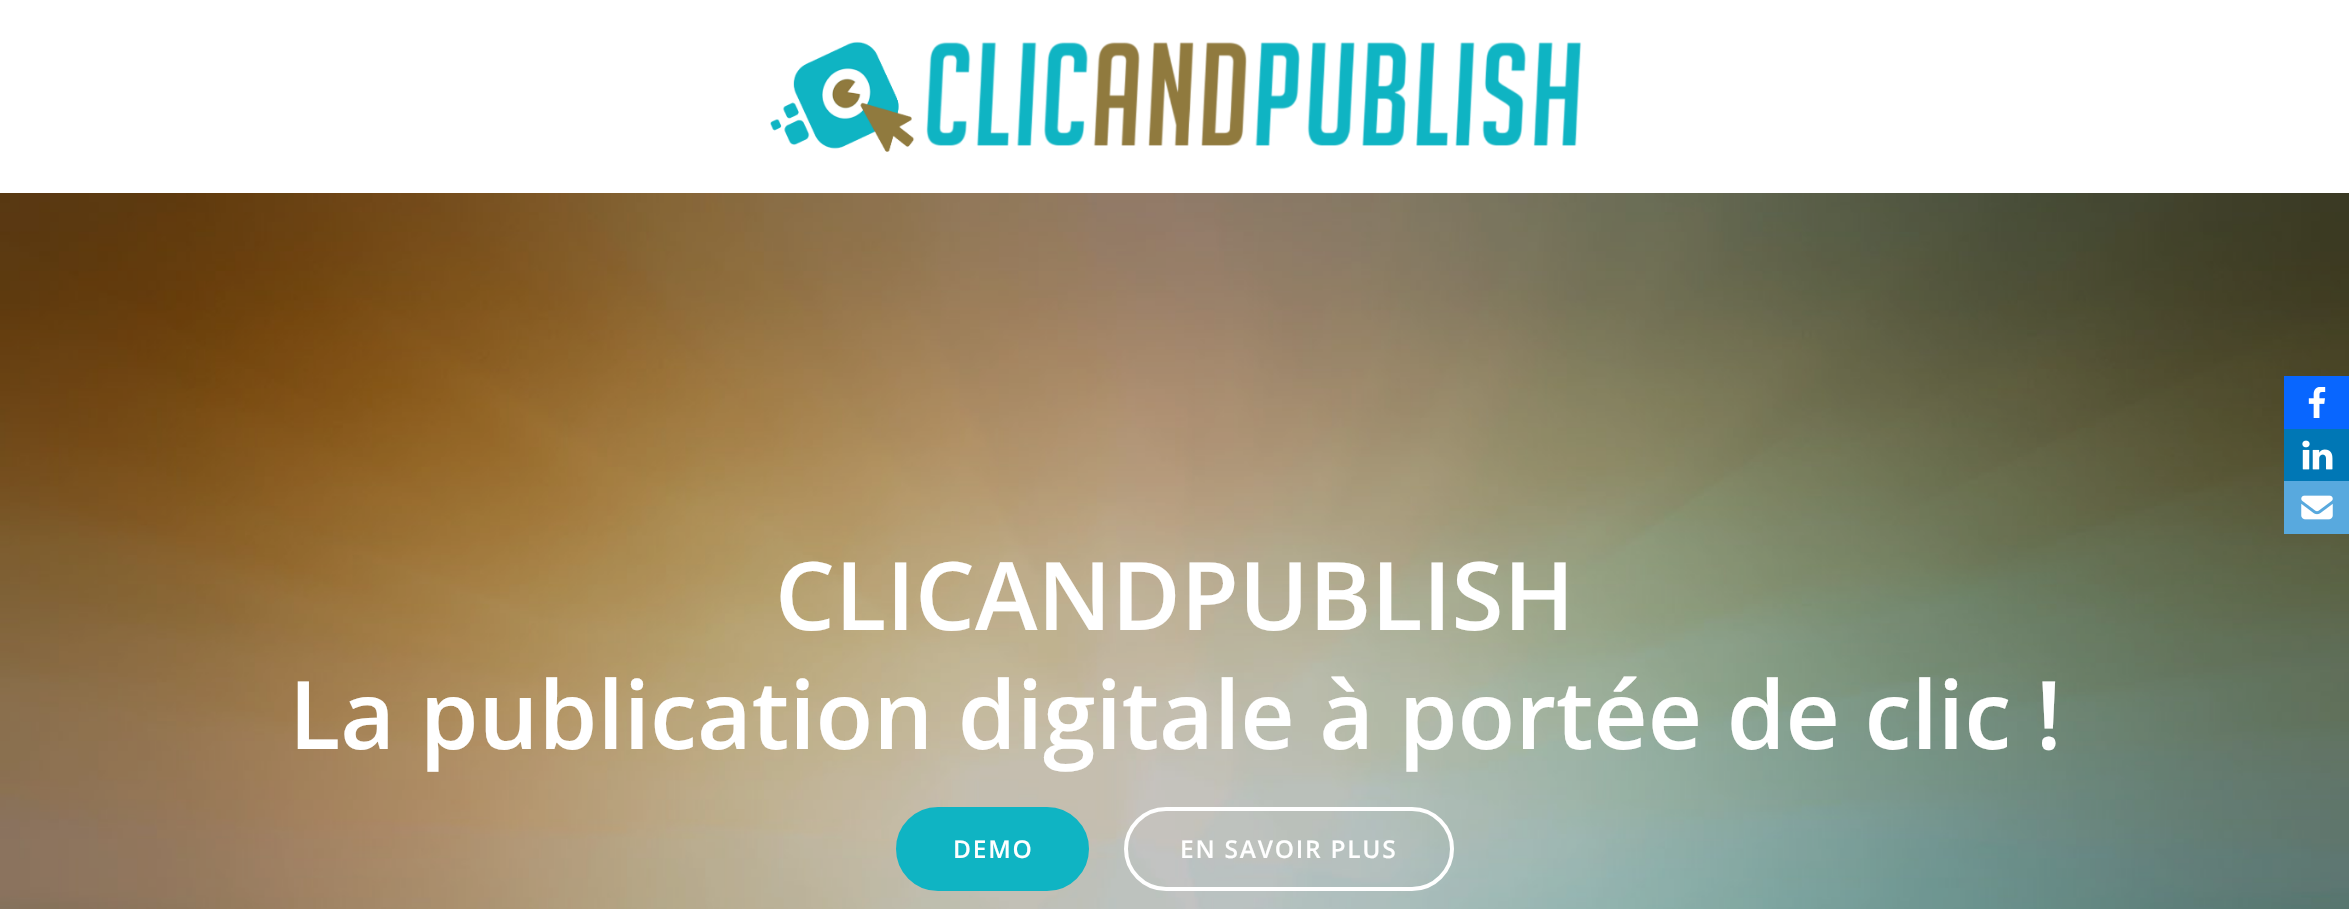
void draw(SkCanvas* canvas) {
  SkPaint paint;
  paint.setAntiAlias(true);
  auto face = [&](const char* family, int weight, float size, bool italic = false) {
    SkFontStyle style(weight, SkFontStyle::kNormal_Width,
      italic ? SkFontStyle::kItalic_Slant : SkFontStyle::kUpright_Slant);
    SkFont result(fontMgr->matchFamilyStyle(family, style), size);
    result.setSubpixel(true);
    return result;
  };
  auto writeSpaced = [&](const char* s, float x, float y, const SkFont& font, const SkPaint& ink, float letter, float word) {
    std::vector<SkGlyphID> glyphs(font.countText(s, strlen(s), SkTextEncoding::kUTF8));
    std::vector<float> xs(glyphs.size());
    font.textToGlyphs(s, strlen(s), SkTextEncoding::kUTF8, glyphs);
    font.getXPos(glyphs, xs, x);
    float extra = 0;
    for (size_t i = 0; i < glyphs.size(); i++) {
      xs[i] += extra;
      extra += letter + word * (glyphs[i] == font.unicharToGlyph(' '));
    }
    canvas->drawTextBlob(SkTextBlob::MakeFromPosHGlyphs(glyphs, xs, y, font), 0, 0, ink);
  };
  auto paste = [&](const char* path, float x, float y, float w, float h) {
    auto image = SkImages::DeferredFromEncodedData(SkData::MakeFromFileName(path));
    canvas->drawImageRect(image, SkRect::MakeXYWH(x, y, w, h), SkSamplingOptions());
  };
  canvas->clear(0xffffffff);
  paste("img/5.png", 0, 193, 2349, 716);
  paint.setColor(0xff0866ff);
  canvas->drawRect(SkRect::MakeXYWH(2284, 376, 65, 53), paint);
  paste("img/1.png", 2308, 387, 18, 31);
  paint.setColor(0xff0077b5);
  canvas->drawRect(SkRect::MakeXYWH(2284, 429, 65, 52), paint);
  paste("img/2.png", 2302, 440, 31, 30);
  paint.setColor(0xff58a9de);
  canvas->drawRect(SkRect::MakeXYWH(2284, 481, 65, 53), paint);
  paste("img/3.png", 2301, 495, 32, 25);
  paste("img/4.png", 770, 41, 812, 111);
  paint.setColor(0xff0fb4c3);
  canvas->drawRoundRect(SkRect::MakeXYWH(898, 809, 189, 80), 40, 40, paint);
  paint.setStroke(true);
  paint.setStrokeWidth(4);
  canvas->drawRoundRect(SkRect::MakeXYWH(898, 809, 189, 80), 40, 40, paint);
  paint.setColor(0xffffffff);
  canvas->drawRoundRect(SkRect::MakeXYWH(1126, 809, 326, 80), 40, 40, paint);
  auto f0 = face("Open Sans", 600, 94.5f);
  paint.setStroke(false);
  canvas->drawString("CLICANDPUBLISH", 775, 630, f0, paint);
  canvas->drawString("La publication digitale à portée de clic !", 289, 749, f0, paint);
  auto f1 = face("Open Sans", 600, 24.5f);
  writeSpaced("DEMO", 953, 858, f1, paint, 1.75f, 0);
  writeSpaced("EN SAVOIR PLUS", 1180, 858, f1, paint, 1.75f, 0);
}
